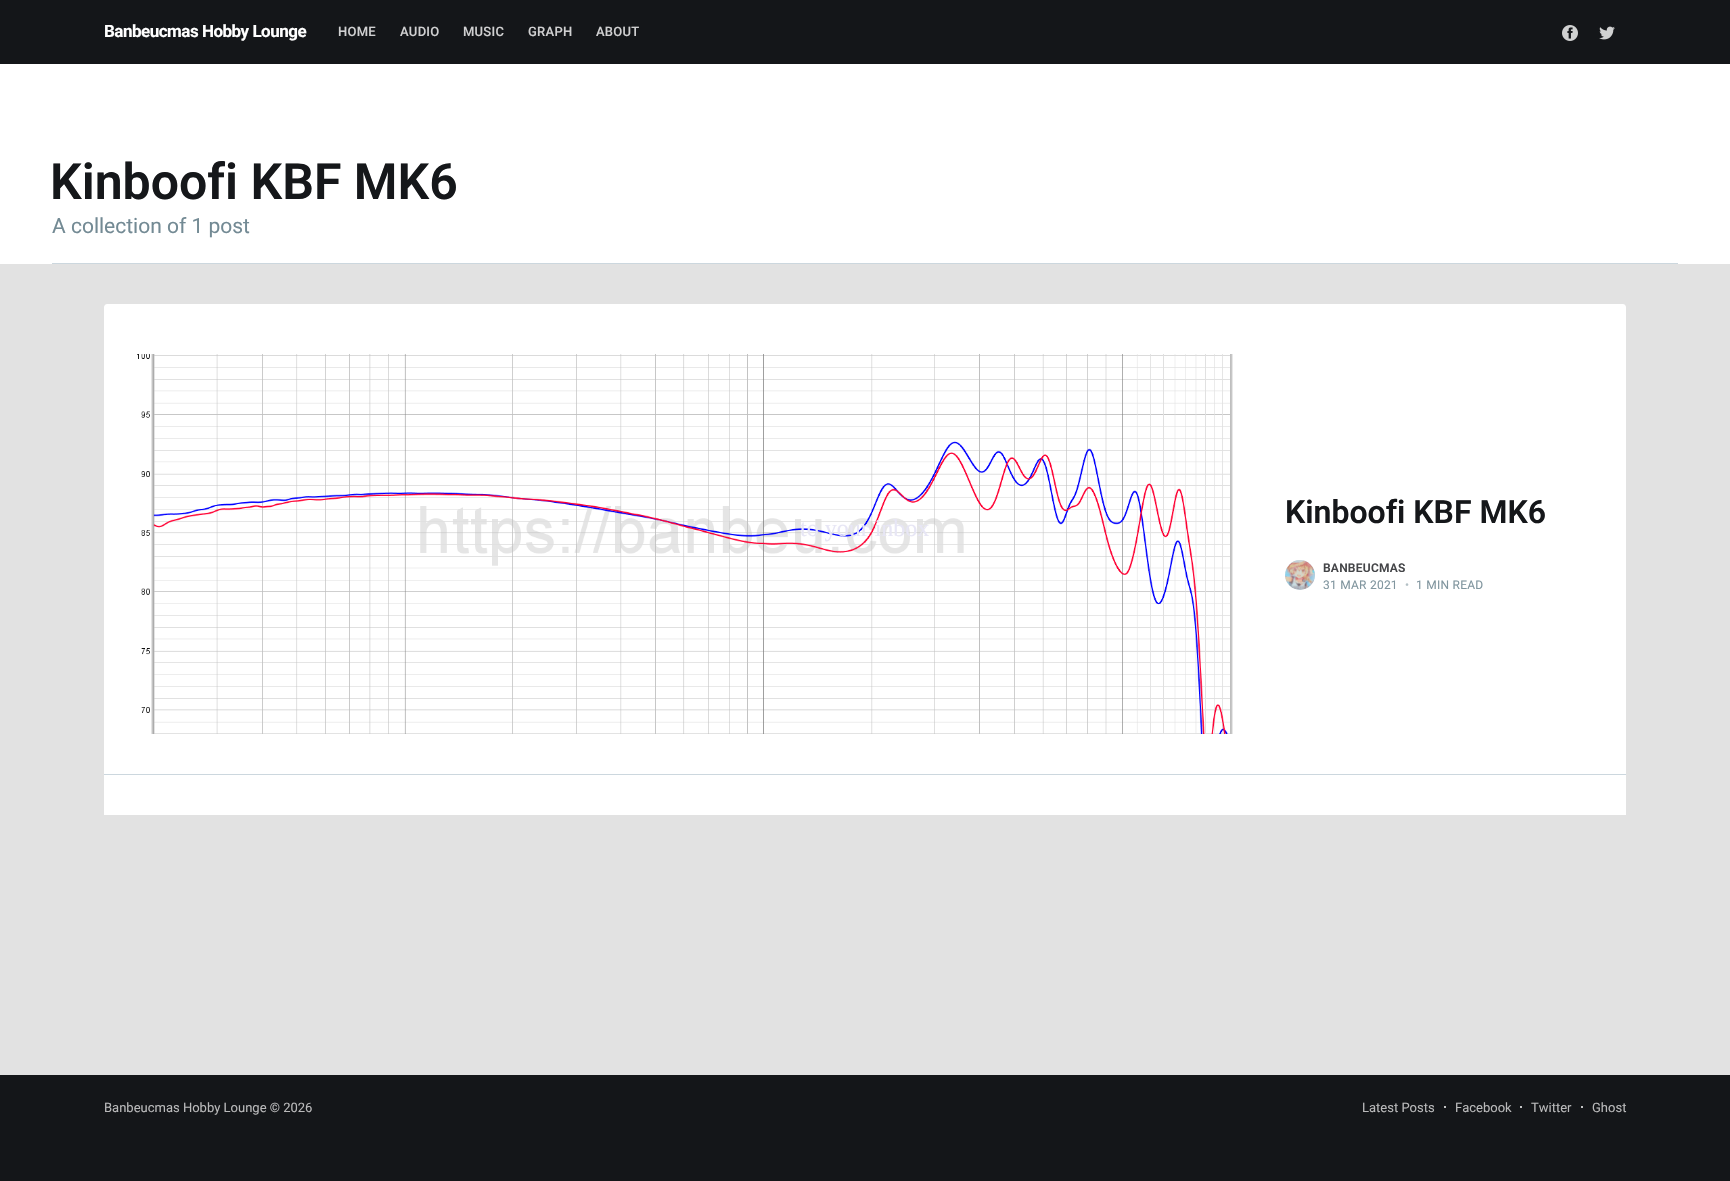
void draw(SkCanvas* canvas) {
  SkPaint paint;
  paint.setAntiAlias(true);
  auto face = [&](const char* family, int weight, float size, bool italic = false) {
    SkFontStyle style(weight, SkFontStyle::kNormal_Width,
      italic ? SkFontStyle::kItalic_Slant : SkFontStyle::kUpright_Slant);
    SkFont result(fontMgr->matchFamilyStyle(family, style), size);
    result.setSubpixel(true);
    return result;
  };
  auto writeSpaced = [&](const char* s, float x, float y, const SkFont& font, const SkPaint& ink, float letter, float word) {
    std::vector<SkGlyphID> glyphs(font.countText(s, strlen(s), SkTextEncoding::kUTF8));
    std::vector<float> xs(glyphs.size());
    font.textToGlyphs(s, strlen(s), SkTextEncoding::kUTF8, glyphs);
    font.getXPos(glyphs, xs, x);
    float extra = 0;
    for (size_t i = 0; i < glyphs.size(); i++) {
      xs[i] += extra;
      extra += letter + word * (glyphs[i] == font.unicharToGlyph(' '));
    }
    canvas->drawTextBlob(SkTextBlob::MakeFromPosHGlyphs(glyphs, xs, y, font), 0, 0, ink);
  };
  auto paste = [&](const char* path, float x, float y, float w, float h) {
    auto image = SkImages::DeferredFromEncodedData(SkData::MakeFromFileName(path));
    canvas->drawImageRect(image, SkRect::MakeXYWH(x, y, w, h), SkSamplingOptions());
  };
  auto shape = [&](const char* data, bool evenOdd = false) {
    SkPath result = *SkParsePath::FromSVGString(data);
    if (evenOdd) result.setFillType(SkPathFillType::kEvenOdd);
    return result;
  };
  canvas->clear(0xffe2e2e2);
  paint.setColor(0xff141619);
  canvas->drawRect(SkRect::MakeXYWH(0, 0, 1730, 64), paint);
  paste("img/1.png", 1562, 25, 16, 16);
  paste("img/2.png", 1599, 26, 16, 14);
  paint.setColor(0xffffffff);
  canvas->drawRect(SkRect::MakeXYWH(0, 64, 1730, 200), paint);
  paint.setColor(0xffccd7de);
  canvas->drawRect(SkRect::MakeXYWH(52, 263, 1626, 1), paint);
  paint.setColor(0xffffffff);
  canvas->drawPath(shape("M107 304H1623C1624.5 304 1626 305.5 1626 307V815H104V307C104 305.5 105.5 304 107 304Z"), paint);
  paint.setColor(0xffccd7de);
  canvas->drawRect(SkRect::MakeXYWH(104, 774, 1522, 1), paint);
  paste("img/3.png", 124, 354, 1121, 380);
  paint.setColor(0xffcbd7dd);
  canvas->drawCircle(1300, 575, 15, paint);
  paste("img/4.png", 1285, 560, 30, 30);
  paint.setColor(0xff141619);
  canvas->drawRect(SkRect::MakeXYWH(0, 1075, 1730, 106), paint);
  paint.setColor(0xffffffff);
  canvas->drawCircle(1445, 1107, 1, paint);
  canvas->drawCircle(1521, 1107, 1, paint);
  canvas->drawCircle(1582, 1107, 1, paint);
  auto f0 = face("Roboto", 700, 17);
  writeSpaced("Banbeucmas Hobby Lounge", 104, 37, f0, paint, -0.5f, 0);
  auto f1 = face("Roboto", 500, 13);
  paint.setColor(0xffd0d0d1);
  {
    const struct { const char* s; float x, y; } items[] = {
      {"HOME", 338, 36},
      {"AUDIO", 400, 36},
      {"MUSIC", 463, 36},
      {"GRAPH", 528, 36},
      {"ABOUT", 596, 36},
    };
    for (auto [s, x, y] : items) {
      writeSpaced(s, x, y, f1, paint, 0.25f, 0);
    }
  }
  auto f2 = face("Roboto", 600, 50);
  paint.setColor(0xff15171a);
  canvas->drawString("Kinboofi KBF MK6", 50, 199, f2, paint);
  auto f3 = face("Roboto", 400, 21);
  paint.setColor(0xff738a94);
  canvas->drawString("A collection of 1 post", 52, 233, f3, paint);
  auto f4 = face("Roboto", 600, 32);
  paint.setColor(0xff15171a);
  canvas->drawString("Kinboofi KBF MK6", 1285, 523, f4, paint);
  auto f5 = face("Roboto", 600, 12);
  paint.setColor(0xff444548);
  writeSpaced("BANBEUCMAS", 1323, 572, f5, paint, 0.25f, 0);
  auto f6 = face("Roboto", 400, 12);
  paint.setColor(0xff81969f);
  writeSpaced("31 MAR 2021", 1323, 589, f6, paint, 0.25f, 0);
  paint.setColor(0xffb3c0c5);
  writeSpaced("•", 1405, 589, f6, paint, 0.25f, 0);
  paint.setColor(0xff81969f);
  writeSpaced("1 MIN READ", 1416, 589, f6, paint, 0.25f, 0);
  auto f7 = face("Roboto", 400, 13);
  paint.setColor(0xffb9b9ba);
  {
    const struct { const char* s; float x, y; } items[] = {
      {"Banbeucmas Hobby Lounge © 2026", 104, 1112},
      {"Latest Posts", 1362, 1112},
      {"Facebook", 1455, 1112},
      {"Twitter", 1531, 1112},
      {"Ghost", 1592, 1112},
    };
    for (auto [s, x, y] : items) {
      canvas->drawString(s, x, y, f7, paint);
    }
  }
  auto f8 = face("Liberation Serif", 400, 24);
  paint.setColor(0xffe7e6f5);
  canvas->drawString("to your inbox", 800, 536, f8, paint);
}
